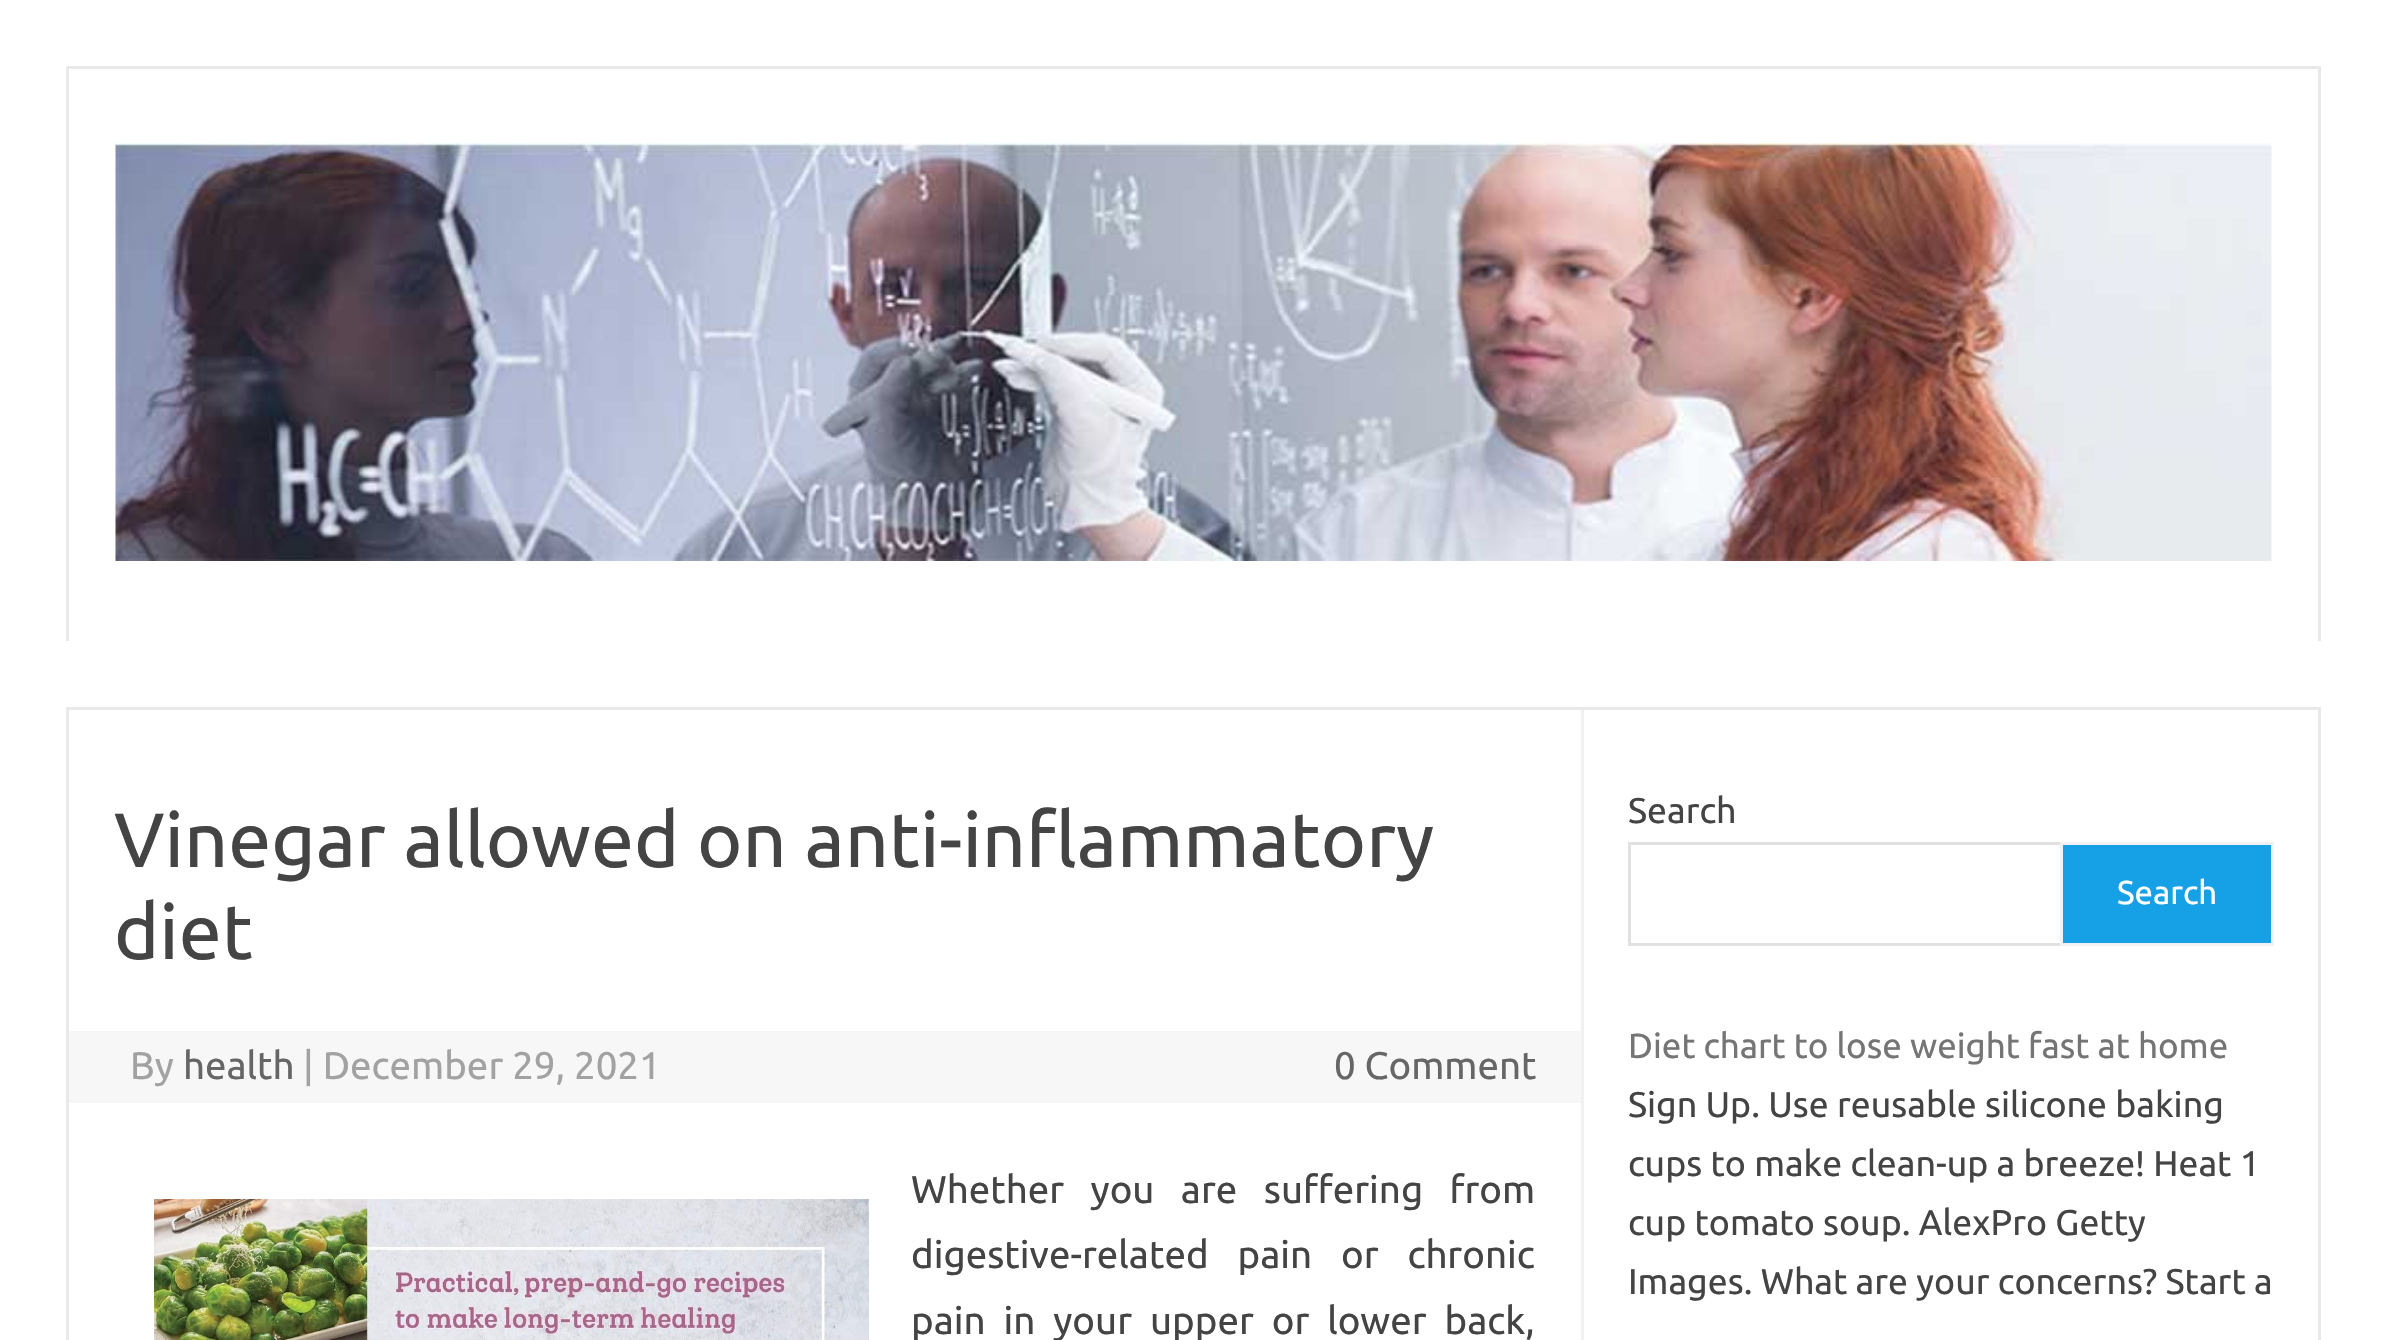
void draw(SkCanvas* canvas) {
  SkPaint paint;
  paint.setAntiAlias(true);
  auto face = [&](const char* family, int weight, float size, bool italic = false) {
    SkFontStyle style(weight, SkFontStyle::kNormal_Width,
      italic ? SkFontStyle::kItalic_Slant : SkFontStyle::kUpright_Slant);
    SkFont result(fontMgr->matchFamilyStyle(family, style), size);
    result.setSubpixel(true);
    return result;
  };
  auto writeSpaced = [&](const char* s, float x, float y, const SkFont& font, const SkPaint& ink, float letter, float word) {
    std::vector<SkGlyphID> glyphs(font.countText(s, strlen(s), SkTextEncoding::kUTF8));
    std::vector<float> xs(glyphs.size());
    font.textToGlyphs(s, strlen(s), SkTextEncoding::kUTF8, glyphs);
    font.getXPos(glyphs, xs, x);
    float extra = 0;
    for (size_t i = 0; i < glyphs.size(); i++) {
      xs[i] += extra;
      extra += letter + word * (glyphs[i] == font.unicharToGlyph(' '));
    }
    canvas->drawTextBlob(SkTextBlob::MakeFromPosHGlyphs(glyphs, xs, y, font), 0, 0, ink);
  };
  auto paste = [&](const char* path, float x, float y, float w, float h) {
    auto image = SkImages::DeferredFromEncodedData(SkData::MakeFromFileName(path));
    canvas->drawImageRect(image, SkRect::MakeXYWH(x, y, w, h), SkSamplingOptions());
  };
  canvas->clear(0xffffffff);
  {
    const struct { float x, y, w, h; SkColor color; } items[] = {
      {66, 66, 2255, 3, 0xffe9e9e9},
      {2318, 66, 3, 575, 0xffe9e9e9},
      {66, 66, 3, 575, 0xffe9e9e9},
    };
    for (auto [x, y, w, h, color] : items) {
      paint.setColor(color);
      canvas->drawRect(SkRect::MakeXYWH(x, y, w, h), paint);
    }
  }
  paste("img/1.png", 115, 143, 2157, 418);
  paint.setStroke(true);
  paint.setStrokeWidth(3);
  canvas->drawRect(SkRect::MakeXYWH(67.5f, 708.5f, 2252, 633), paint);
  paint.setStroke(false);
  paint.setColor(0xfff1f1f1);
  canvas->drawRect(SkRect::MakeXYWH(1581, 710, 3, 630), paint);
  paint.setColor(0xfff7f7f7);
  canvas->drawRect(SkRect::MakeXYWH(69, 1031, 1512, 72), paint);
  paste("img/2.png", 154, 1199, 715, 141);
  paint.setStroke(true);
  paint.setColor(0xffe1e1e1);
  canvas->drawRect(SkRect::MakeXYWH(1629.5f, 843.5f, 432, 101), paint);
  paint.setStroke(false);
  paint.setColor(0xff16a1e7);
  canvas->drawRect(SkRect::MakeXYWH(2061.5f, 843.5f, 211, 101), paint);
  paint.setStroke(true);
  paint.setColor(0xfff1f1f1);
  canvas->drawRect(SkRect::MakeXYWH(2061.5f, 843.5f, 211, 101), paint);
  auto f0 = face("Ubuntu", 400, 77);
  paint.setStroke(false);
  paint.setColor(0xff444444);
  canvas->drawString("Vinegar allowed on anti-inflammatory", 114, 867, f0, paint);
  canvas->drawString("diet", 114, 959, f0, paint);
  auto f1 = face("Ubuntu", 400, 38.5f);
  paint.setColor(0xffa2a2a2);
  canvas->drawString("By", 130, 1079, f1, paint);
  paint.setColor(0xff666666);
  canvas->drawString("health", 183, 1079, f1, paint);
  paint.setColor(0xffa2a2a2);
  canvas->drawString("| December 29, 2021", 303, 1079, f1, paint);
  paint.setColor(0xff666666);
  canvas->drawString("0 Comment", 1334, 1079, f1, paint);
  paint.setColor(0xff444444);
  writeSpaced("Whether you are suffering from", 911, 1203, f1, paint, 0, 17.5f);
  writeSpaced("digestive-related pain or chronic", 911, 1268, f1, paint, 0, 20);
  writeSpaced("pain in your upper or lower back,", 911, 1334, f1, paint, 0, 9);
  auto f2 = face("Ubuntu", 400, 35.75f);
  canvas->drawString("Search", 1628, 823, f2, paint);
  auto f3 = face("Ubuntu", 400, 33);
  paint.setColor(0xffffffff);
  canvas->drawString("Search", 2117, 904, f3, paint);
  auto f4 = face("Ubuntu", 400, 35);
  paint.setColor(0xff757575);
  canvas->drawString("Diet chart to lose weight fast at home", 1628, 1058, f4, paint);
  paint.setColor(0xff444444);
  {
    const struct { const char* s; float x, y; } items[] = {
      {"Sign Up. Use reusable silicone baking", 1628, 1117},
      {"cups to make clean-up a breeze! Heat 1", 1628, 1176},
      {"cup tomato soup. AlexPro Getty", 1628, 1235},
      {"Images. What are your concerns? Start a", 1628, 1294},
    };
    for (auto [s, x, y] : items) {
      canvas->drawString(s, x, y, f2, paint);
    }
  }
}
